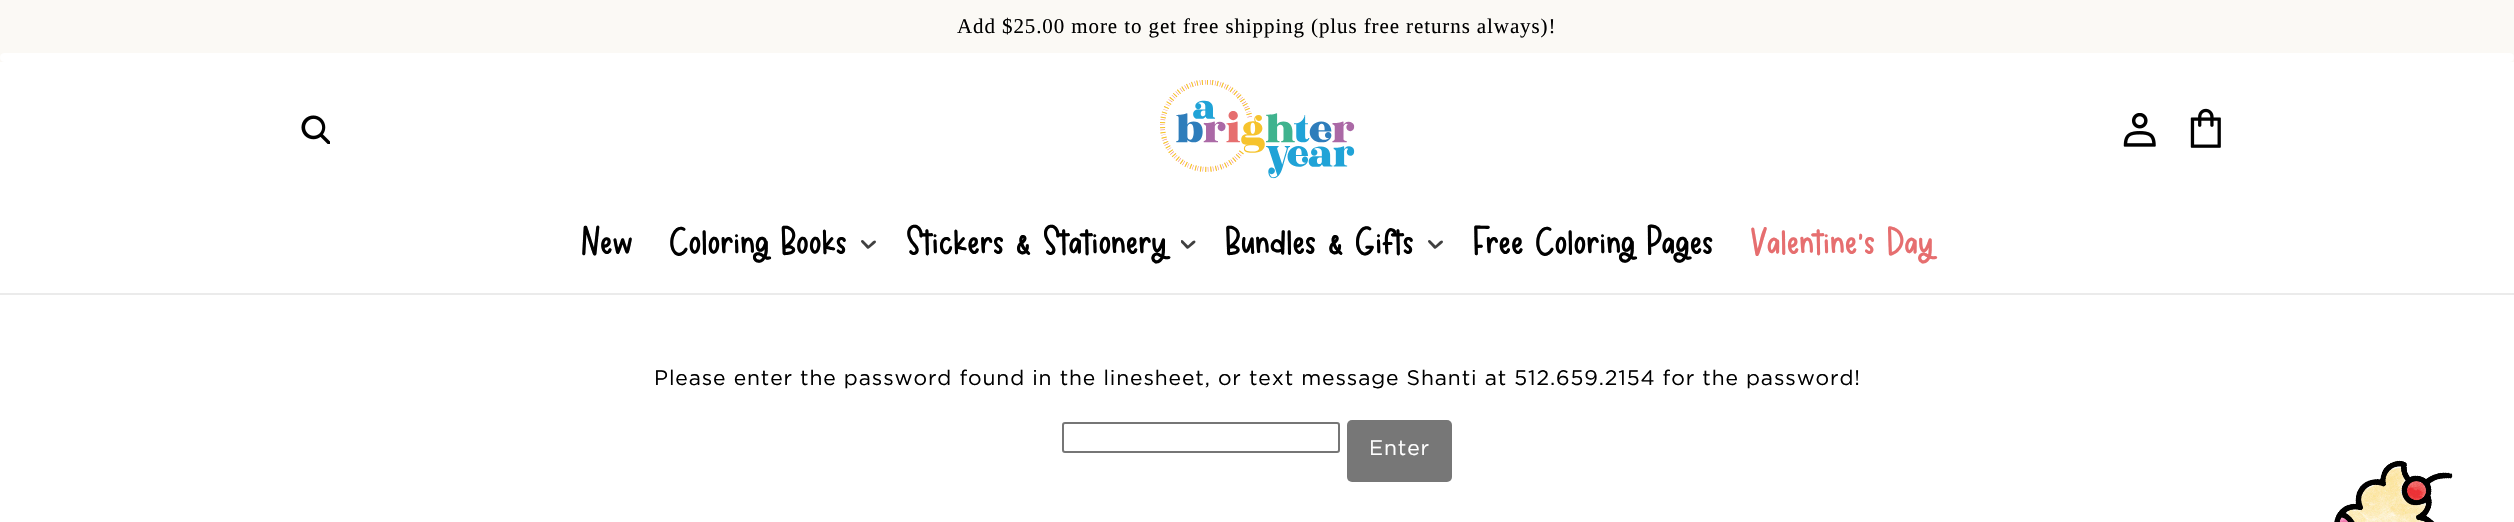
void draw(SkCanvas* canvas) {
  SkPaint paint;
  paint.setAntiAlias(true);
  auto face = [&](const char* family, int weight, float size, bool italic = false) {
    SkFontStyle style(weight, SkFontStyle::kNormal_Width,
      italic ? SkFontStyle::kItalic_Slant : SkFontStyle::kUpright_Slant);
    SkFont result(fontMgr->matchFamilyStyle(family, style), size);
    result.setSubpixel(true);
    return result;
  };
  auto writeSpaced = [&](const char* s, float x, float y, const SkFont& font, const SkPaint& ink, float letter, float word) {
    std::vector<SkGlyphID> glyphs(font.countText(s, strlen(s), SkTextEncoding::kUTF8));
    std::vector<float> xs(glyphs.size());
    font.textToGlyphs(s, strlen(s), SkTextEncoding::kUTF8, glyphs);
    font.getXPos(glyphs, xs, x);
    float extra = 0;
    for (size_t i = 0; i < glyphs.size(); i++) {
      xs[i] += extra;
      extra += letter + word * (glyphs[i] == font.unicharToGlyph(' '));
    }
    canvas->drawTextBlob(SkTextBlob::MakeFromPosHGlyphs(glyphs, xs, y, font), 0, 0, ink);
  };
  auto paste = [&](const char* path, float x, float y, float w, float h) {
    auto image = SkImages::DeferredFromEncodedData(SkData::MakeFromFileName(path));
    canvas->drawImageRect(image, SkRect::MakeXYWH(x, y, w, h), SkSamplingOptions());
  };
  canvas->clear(0xffffffff);
  paint.setColor(0xfffbf9f5);
  canvas->drawRect(SkRect::MakeXYWH(0, 0, 2514, 62), paint);
  paint.setColor(0xffffffff);
  canvas->drawRoundRect(SkRect::MakeXYWH(0, 53, 2514, 9), 4.5f, 4.5f, paint);
  paint.setColor(0xffebebeb);
  canvas->drawRect(SkRect::MakeXYWH(0, 293, 2514, 2), paint);
  paste("img/1.png", 301, 115, 29, 29);
  paste("img/2.png", 1160, 80, 195, 99);
  paste("img/3.png", 2123, 113, 33, 34);
  paste("img/4.png", 2190, 108, 31, 40);
  paste("img/5.png", 861, 240, 15, 9);
  paste("img/6.png", 1181, 240, 15, 9);
  paste("img/5.png", 1428, 240, 15, 9);
  paint.setStroke(true);
  paint.setStrokeWidth(2);
  paint.setColor(0xff767676);
  canvas->drawRoundRect(SkRect::MakeXYWH(1063, 423, 276, 29), 2, 2, paint);
  paint.setStroke(false);
  paint.setColor(0xff777777);
  canvas->drawRoundRect(SkRect::MakeXYWH(1347, 420, 105, 62), 5, 5, paint);
  paste("img/7.png", 2334, 460, 119, 62);
  auto f0 = face("Liberation Serif", 400, 21);
  paint.setColor(0xff000000);
  writeSpaced("Add $25.00 more to get free shipping (plus free returns always)!", 957, 33, f0, paint, 0.9f, 0);
  auto f1 = face("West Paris", 700, 30);
  {
    const struct { const char* s; float x, y; } items[] = {
      {"New", 581, 254},
      {"Coloring Books", 669, 254},
      {"Stickers & Stationery", 906, 254},
      {"Bundles & Gifts", 1225, 254},
      {"Free Coloring Pages", 1473, 254},
    };
    for (auto [s, x, y] : items) {
      writeSpaced(s, x, y, f1, paint, 1.9f, 0);
    }
  }
  paint.setColor(0xffe66e6f);
  writeSpaced("Valentine's Day", 1750, 254, f1, paint, 1.9f, 0);
  auto f2 = face("Gotham", 400, 21);
  paint.setColor(0xff000000);
  writeSpaced("Please enter the password found in the linesheet, or text message Shanti at 512.659.2154 for the password!", 654, 385, f2, paint, 0.9f, 0);
  paint.setColor(0xffffffff);
  writeSpaced("Enter", 1369, 455, f2, paint, 0.9f, 0);
}
